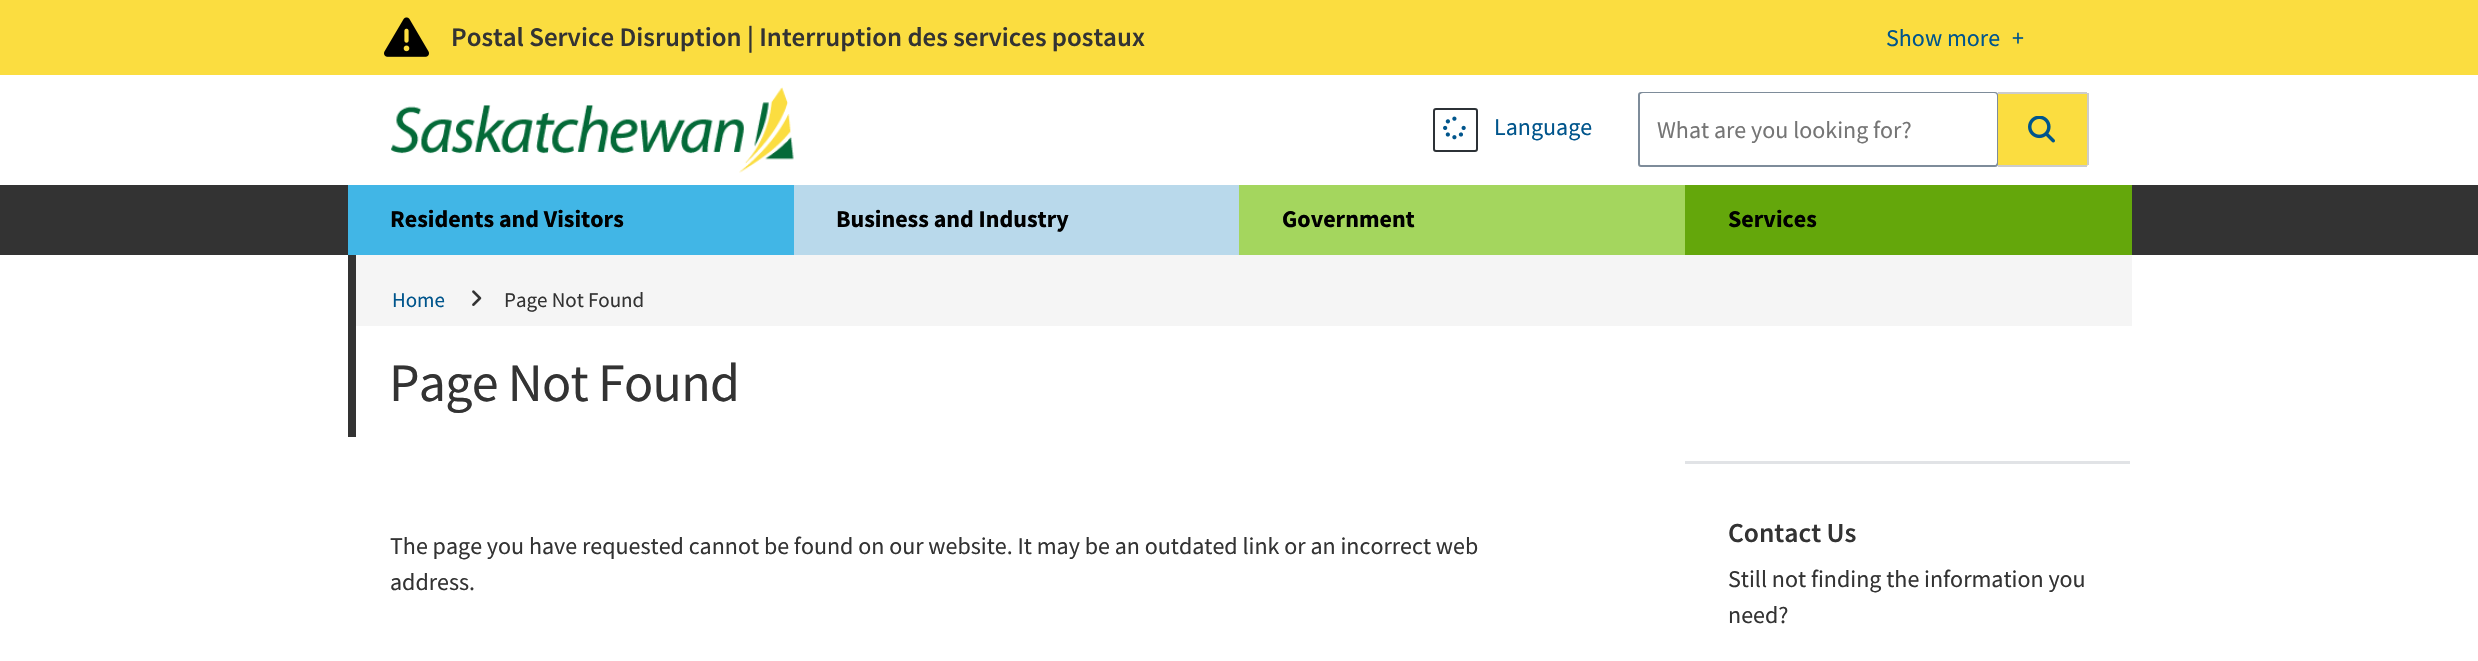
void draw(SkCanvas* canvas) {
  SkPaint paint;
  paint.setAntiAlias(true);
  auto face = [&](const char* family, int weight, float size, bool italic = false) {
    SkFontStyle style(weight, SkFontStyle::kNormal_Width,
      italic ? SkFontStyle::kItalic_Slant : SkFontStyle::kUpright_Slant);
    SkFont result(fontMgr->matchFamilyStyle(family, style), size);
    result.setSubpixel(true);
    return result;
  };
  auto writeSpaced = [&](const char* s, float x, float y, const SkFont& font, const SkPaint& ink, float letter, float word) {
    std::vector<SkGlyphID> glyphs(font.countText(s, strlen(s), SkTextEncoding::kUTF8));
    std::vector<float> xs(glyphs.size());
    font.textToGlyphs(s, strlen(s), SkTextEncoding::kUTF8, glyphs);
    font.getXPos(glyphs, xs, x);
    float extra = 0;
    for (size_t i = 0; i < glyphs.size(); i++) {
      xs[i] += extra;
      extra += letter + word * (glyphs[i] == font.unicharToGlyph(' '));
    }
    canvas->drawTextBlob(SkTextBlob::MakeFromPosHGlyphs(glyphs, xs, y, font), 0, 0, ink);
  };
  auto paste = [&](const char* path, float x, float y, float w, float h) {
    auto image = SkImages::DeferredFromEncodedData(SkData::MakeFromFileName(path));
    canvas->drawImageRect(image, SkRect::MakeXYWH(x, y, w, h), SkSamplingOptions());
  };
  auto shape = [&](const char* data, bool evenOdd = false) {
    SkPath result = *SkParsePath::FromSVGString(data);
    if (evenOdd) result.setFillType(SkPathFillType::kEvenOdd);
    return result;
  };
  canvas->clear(0xffffffff);
  paint.setColor(0xfffbdd40);
  canvas->drawRect(SkRect::MakeXYWH(0, 0, 2478, 75), paint);
  paste("img/1.png", 384, 17, 45, 40);
  paste("img/2.png", 391, 87, 403, 86);
  paint.setStroke(true);
  paint.setStrokeWidth(2);
  paint.setColor(0xff2c3136);
  canvas->drawRoundRect(SkRect::MakeXYWH(1434, 109, 43, 42), 2, 2, paint);
  paste("img/3.png", 1443, 116, 23, 24);
  paint.setColor(0xff7e8c9a);
  canvas->drawRoundRect(SkRect::MakeXYWH(1639, 93, 358, 73), 2, 2, paint);
  paint.setStroke(false);
  paint.setColor(0xffffffff);
  canvas->drawRoundRect(SkRect::MakeXYWH(1640, 93, 357, 72), 3, 3, paint);
  paint.setColor(0xfffbdd40);
  canvas->drawPath(shape("M1998 92H2085C2086.5 92 2088 93.5 2088 95V164C2088 165.5 2086.5 167 2085 167H1998Z"), paint);
  {
    const struct { float x, y, w, h; SkColor color; } items[] = {
      {1998, 92, 89, 2, 0xffcccccc},
      {2087, 93, 2, 72, 0xffcccccc},
      {1998, 165, 89, 2, 0xffcccccc},
    };
    for (auto [x, y, w, h, color] : items) {
      paint.setColor(color);
      canvas->drawRect(SkRect::MakeXYWH(x, y, w, h), paint);
    }
  }
  paste("img/4.png", 2028, 116, 27, 27);
  {
    const struct { float x, y, w, h; SkColor color; } items[] = {
      {0, 185, 2478, 70, 0xff333333},
      {348, 185, 446, 70, 0xff41b6e6},
      {794, 185, 445, 70, 0xffb9d9eb},
      {1239, 185, 446, 70, 0xffa4d65e},
      {1685, 185, 447, 70, 0xff64a70b},
      {356, 255, 1776, 71, 0xfff5f5f5},
      {348, 255, 8, 182, 0xff333333},
    };
    for (auto [x, y, w, h, color] : items) {
      paint.setColor(color);
      canvas->drawRect(SkRect::MakeXYWH(x, y, w, h), paint);
    }
  }
  paste("img/5.png", 472, 290, 10, 16);
  paint.setColor(0xffe1e3e6);
  canvas->drawRect(SkRect::MakeXYWH(1685, 461, 445, 3), paint);
  auto f0 = face("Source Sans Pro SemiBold", 600, 26.9f);
  paint.setColor(0xff333333);
  canvas->drawString("Postal Service Disruption | Interruption des services postaux", 451, 46, f0, paint);
  auto f1 = face("Source Sans Pro", 400, 24);
  paint.setColor(0xff00558c);
  {
    const struct { const char* s; float x, y; } items[] = {
      {"Show more", 1886, 46},
      {"+", 2012, 46},
      {"Language", 1494, 135},
    };
    for (auto [s, x, y] : items) {
      canvas->drawString(s, x, y, f1, paint);
    }
  }
  paint.setColor(0xff757575);
  canvas->drawString("What are you looking for?", 1657, 138, f1, paint);
  auto f2 = face("Source Sans Pro", 700, 24);
  paint.setColor(0xff000000);
  {
    const struct { const char* s; float x, y; } items[] = {
      {"Residents and Visitors", 390, 227},
      {"Business and Industry", 836, 227},
      {"Government", 1282, 227},
      {"Services", 1728, 227},
    };
    for (auto [s, x, y] : items) {
      canvas->drawString(s, x, y, f2, paint);
    }
  }
  auto f3 = face("Source Sans Pro", 400, 21);
  paint.setColor(0xff00558c);
  canvas->drawString("Home", 392, 307, f3, paint);
  paint.setColor(0xff333333);
  canvas->drawString("Page Not Found", 504, 307, f3, paint);
  auto f4 = face("Source Sans Pro", 400, 54);
  writeSpaced("Page Not Found", 389, 401, f4, paint, -0.75f, 0);
  canvas->drawString("The page you have requested cannot be found on our website. It may be an outdated link or an incorrect web", 390, 554, f1, paint);
  canvas->drawString("address.", 390, 590, f1, paint);
  auto f5 = face("Source Sans Pro SemiBold", 600, 27.5f);
  canvas->drawString("Contact Us", 1728, 542, f5, paint);
  canvas->drawString("Still not finding the information you", 1728, 587, f1, paint);
  canvas->drawString("need?", 1728, 623, f1, paint);
}
